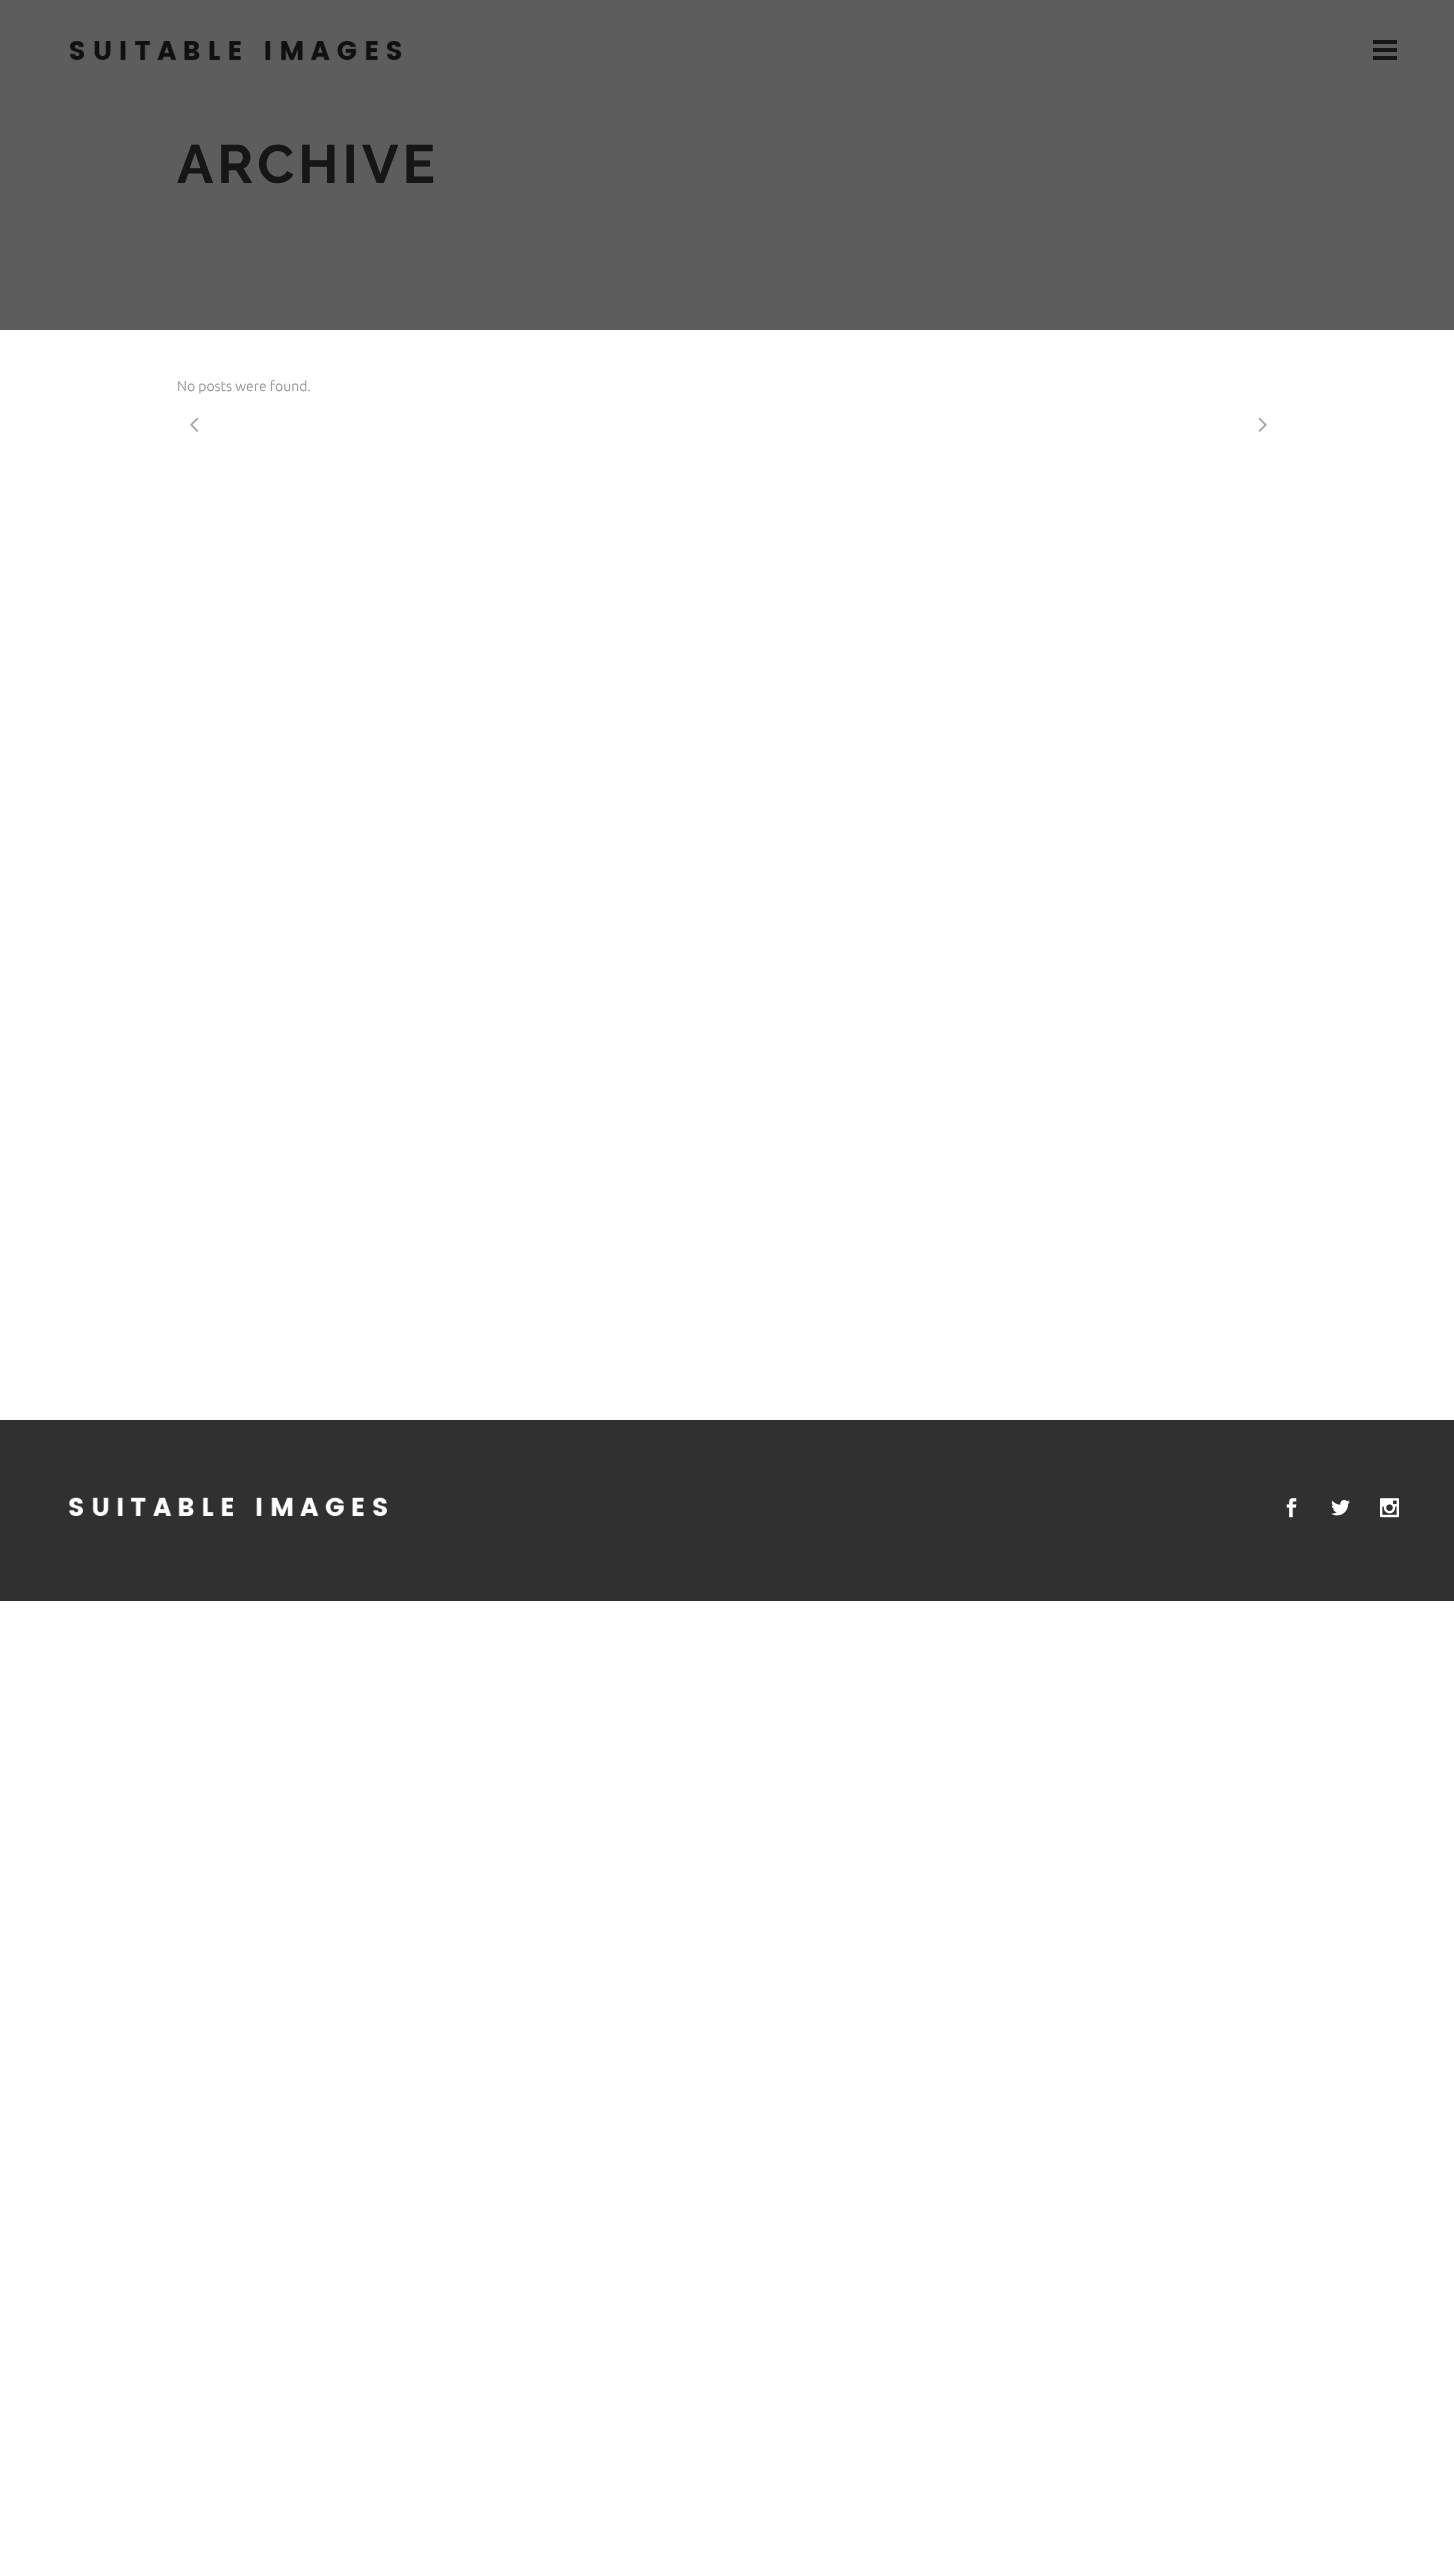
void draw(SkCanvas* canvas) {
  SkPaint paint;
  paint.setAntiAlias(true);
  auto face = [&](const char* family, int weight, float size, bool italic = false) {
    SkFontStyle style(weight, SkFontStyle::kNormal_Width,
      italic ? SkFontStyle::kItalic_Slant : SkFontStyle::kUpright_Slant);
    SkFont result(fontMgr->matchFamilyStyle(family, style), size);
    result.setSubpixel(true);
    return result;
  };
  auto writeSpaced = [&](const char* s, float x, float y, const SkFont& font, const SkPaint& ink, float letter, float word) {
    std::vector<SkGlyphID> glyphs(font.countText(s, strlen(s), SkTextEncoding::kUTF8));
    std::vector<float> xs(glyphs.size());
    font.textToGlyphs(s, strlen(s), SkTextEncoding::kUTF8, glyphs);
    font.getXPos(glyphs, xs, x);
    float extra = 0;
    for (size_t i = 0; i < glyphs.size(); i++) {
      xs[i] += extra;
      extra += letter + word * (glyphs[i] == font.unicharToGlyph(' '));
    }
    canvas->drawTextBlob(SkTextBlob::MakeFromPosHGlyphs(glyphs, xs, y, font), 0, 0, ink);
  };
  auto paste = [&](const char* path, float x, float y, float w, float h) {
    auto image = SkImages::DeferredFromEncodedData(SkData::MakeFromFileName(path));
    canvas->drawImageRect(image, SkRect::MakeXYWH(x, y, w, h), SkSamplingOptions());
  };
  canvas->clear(0xffffffff);
  paint.setColor(0xff5d5d5d);
  canvas->drawRect(SkRect::MakeXYWH(0, 0, 1454, 330), paint);
  paste("img/1.png", 70, 41, 332, 20);
  {
    const struct { float x, y, w, h; SkColor color; } items[] = {
      {1373, 48, 24, 4, 0xff161616},
      {1373, 40, 24, 4, 0xff161616},
      {1373, 56, 24, 4, 0xff161616},
    };
    for (auto [x, y, w, h, color] : items) {
      paint.setColor(color);
      canvas->drawRect(SkRect::MakeXYWH(x, y, w, h), paint);
    }
  }
  paste("img/2.png", 190, 417, 9, 15);
  paste("img/3.png", 1258, 417, 9, 15);
  paint.setColor(0xff303030);
  canvas->drawRect(SkRect::MakeXYWH(0, 1420, 1454, 181), paint);
  paste("img/4.png", 69, 1497, 318, 19);
  paste("img/5.png", 1286, 1498, 11, 20);
  paste("img/6.png", 1331, 1500, 19, 16);
  paste("img/7.png", 1380, 1498, 19, 20);
  auto f0 = face("Raleway", 700, 54);
  paint.setColor(0xff161616);
  writeSpaced("ARCHIVE", 177, 183, f0, paint, 4, 0);
  auto f1 = face("Ubuntu", 300, 14);
  paint.setColor(0xff949494);
  canvas->drawString("No posts were found.", 177, 391, f1, paint);
}
